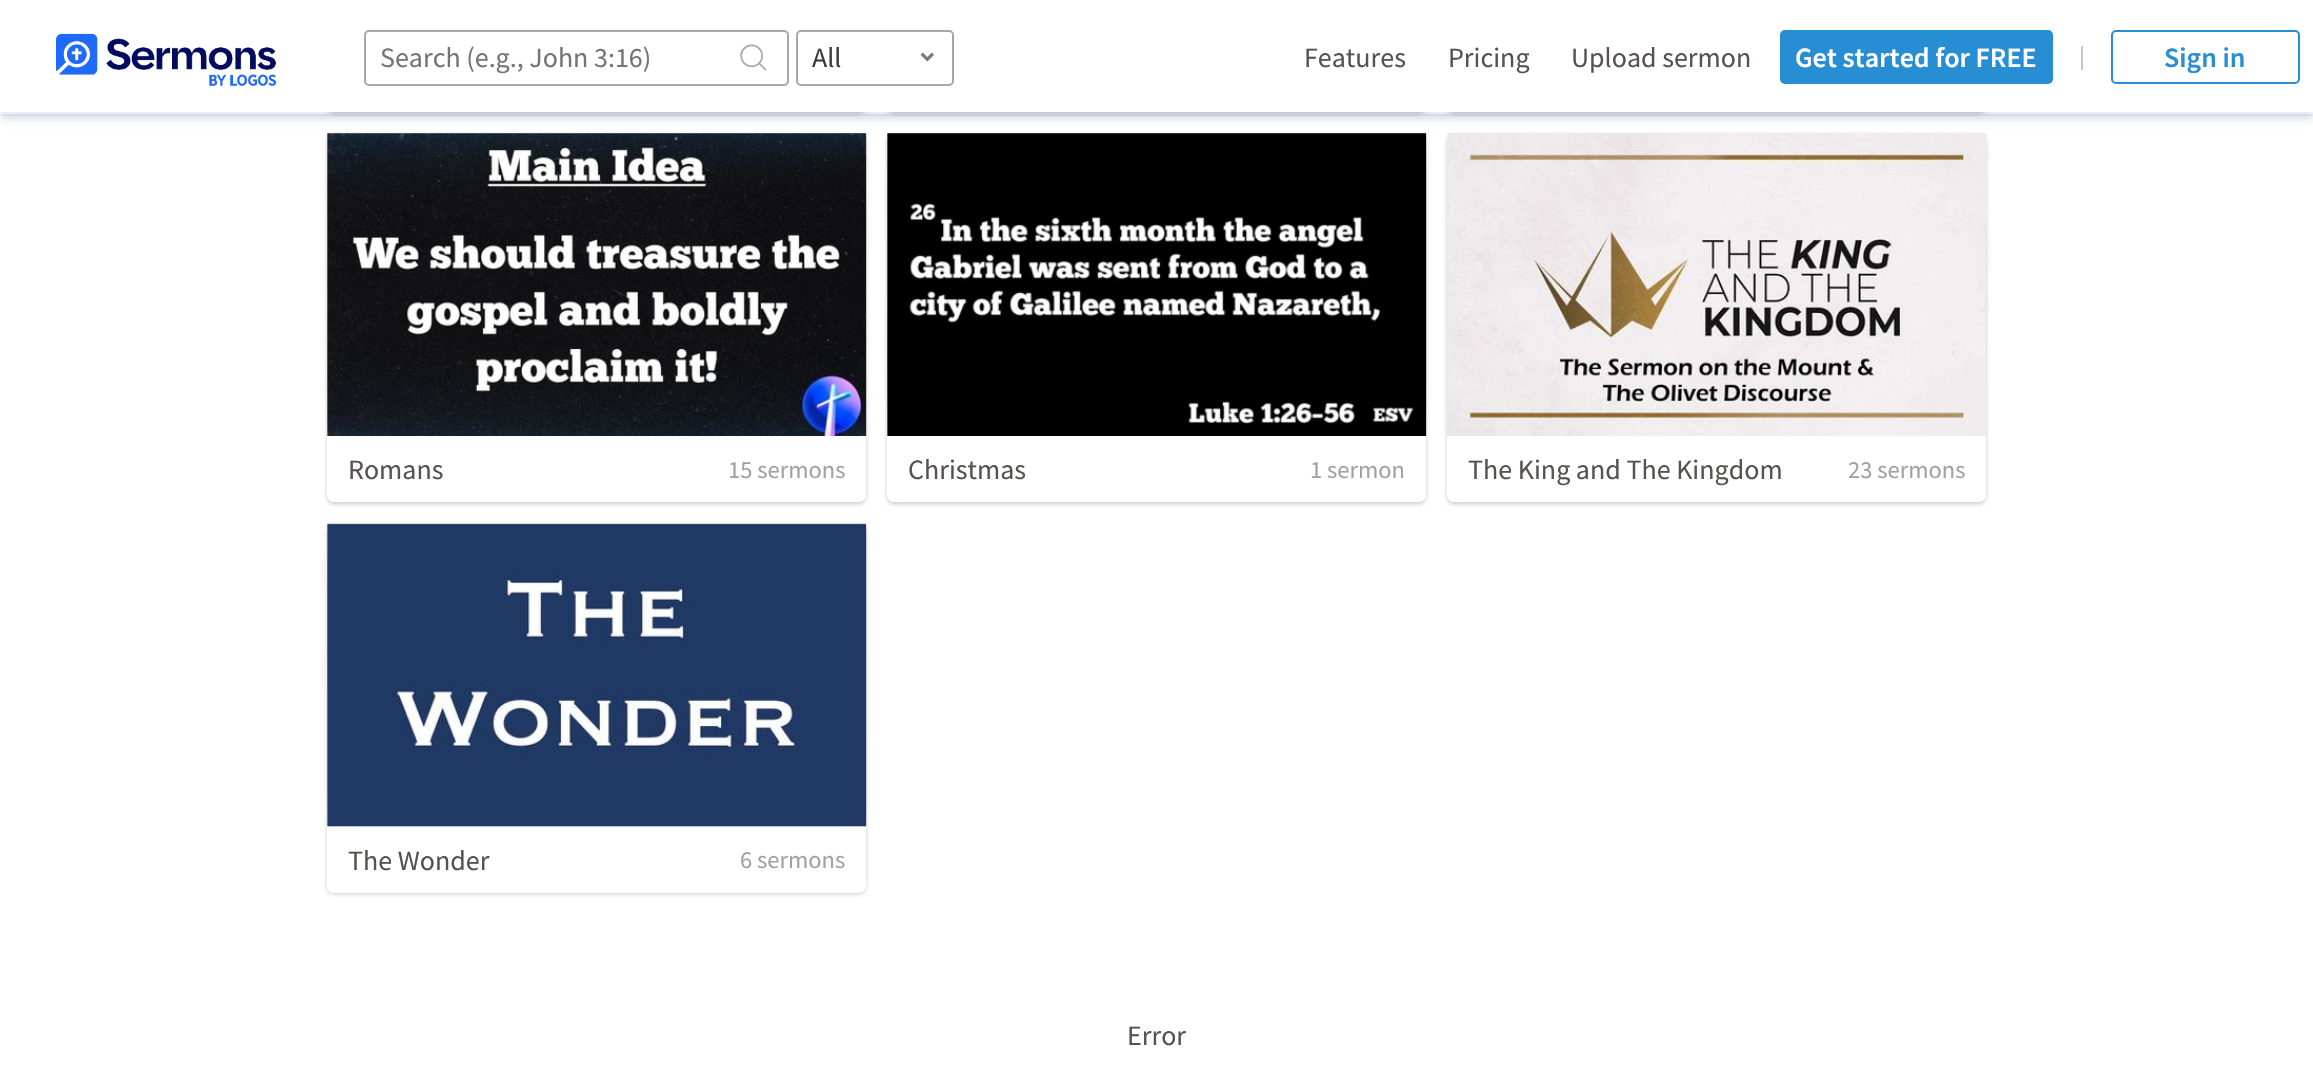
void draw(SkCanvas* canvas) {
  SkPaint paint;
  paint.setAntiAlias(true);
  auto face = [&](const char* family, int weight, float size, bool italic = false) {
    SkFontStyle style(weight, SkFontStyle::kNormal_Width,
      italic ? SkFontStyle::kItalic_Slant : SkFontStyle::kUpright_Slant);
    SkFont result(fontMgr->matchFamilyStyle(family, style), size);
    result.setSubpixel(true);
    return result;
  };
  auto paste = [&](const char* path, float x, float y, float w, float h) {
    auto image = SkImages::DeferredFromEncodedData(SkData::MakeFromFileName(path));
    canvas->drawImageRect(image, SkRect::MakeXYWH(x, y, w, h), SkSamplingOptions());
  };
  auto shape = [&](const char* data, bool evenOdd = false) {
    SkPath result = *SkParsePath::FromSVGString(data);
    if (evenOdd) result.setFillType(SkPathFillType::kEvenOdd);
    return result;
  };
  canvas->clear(0xffffffff);
  paint.setColor(0x1a000000);
  paint.setMaskFilter(SkMaskFilter::MakeBlur(kNormal_SkBlurStyle, 2));
  canvas->drawRect(SkRect::MakeXYWH(0, 2, 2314, 112), paint);
  paint.setMaskFilter(nullptr);
  paint.setColor(0x33000000);
  paint.setMaskFilter(SkMaskFilter::MakeBlur(kNormal_SkBlurStyle, 2));
  canvas->drawRoundRect(SkRect::MakeXYWH(327, -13, 539, 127), 7, 7, paint);
  paint.setMaskFilter(nullptr);
  paint.setMaskFilter(SkMaskFilter::MakeBlur(kNormal_SkBlurStyle, 2));
  canvas->drawRoundRect(SkRect::MakeXYWH(887, -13, 539, 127), 7, 7, paint);
  paint.setMaskFilter(nullptr);
  paint.setMaskFilter(SkMaskFilter::MakeBlur(kNormal_SkBlurStyle, 2));
  canvas->drawRoundRect(SkRect::MakeXYWH(1447, -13, 539, 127), 7, 7, paint);
  paint.setMaskFilter(nullptr);
  paint.setColor(0xffffffff);
  canvas->drawRect(SkRect::MakeXYWH(0, 0, 2313, 112), paint);
  canvas->save();
  canvas->clipPath(shape("M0 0H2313V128H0ZM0 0H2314V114H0Z", true), true);
  paint.setColor(0x336e83b7);
  paint.setMaskFilter(SkMaskFilter::MakeBlur(kNormal_SkBlurStyle, 3.5f));
  canvas->drawRect(SkRect::MakeXYWH(2, 5, 2310, 111), paint);
  paint.setMaskFilter(nullptr);
  canvas->restore();
  paint.setColor(0x33000000);
  paint.setMaskFilter(SkMaskFilter::MakeBlur(kNormal_SkBlurStyle, 2));
  canvas->drawRoundRect(SkRect::MakeXYWH(327, 135, 539, 369), 7, 7, paint);
  paint.setMaskFilter(nullptr);
  paint.setColor(0xffffffff);
  canvas->drawPath(shape("M327 133H866V495C866 499 863 502 859 502H334C330 502 327 499 327 495Z"), paint);
  paint.setColor(0xffeeeeee);
  canvas->drawRect(SkRect::MakeXYWH(327, 133, 539, 303), paint);
  paste("img/4.png", 327, 133, 540, 303);
  paste("img/5.png", 327, 133, 540, 303);
  paint.setColor(0x33000000);
  paint.setMaskFilter(SkMaskFilter::MakeBlur(kNormal_SkBlurStyle, 2));
  canvas->drawRoundRect(SkRect::MakeXYWH(887, 135, 539, 369), 7, 7, paint);
  paint.setMaskFilter(nullptr);
  paint.setColor(0xffffffff);
  canvas->drawPath(shape("M887 133H1426V495C1426 499 1423 502 1419 502H894C890 502 887 499 887 495Z"), paint);
  paint.setColor(0xffeeeeee);
  canvas->drawRect(SkRect::MakeXYWH(887, 133, 539, 303), paint);
  paste("img/6.png", 887, 133, 540, 303);
  paste("img/7.png", 887, 133, 540, 303);
  paint.setColor(0x33000000);
  paint.setMaskFilter(SkMaskFilter::MakeBlur(kNormal_SkBlurStyle, 2));
  canvas->drawRoundRect(SkRect::MakeXYWH(1447, 135, 539, 369), 7, 7, paint);
  paint.setMaskFilter(nullptr);
  paint.setColor(0xffffffff);
  canvas->drawPath(shape("M1447 133H1986V495C1986 499 1983 502 1979 502H1454C1450 502 1447 499 1447 495Z"), paint);
  paint.setColor(0xffeeeeee);
  canvas->drawRect(SkRect::MakeXYWH(1447, 133, 539, 303), paint);
  paste("img/9.png", 1447, 134, 540, 302);
  paste("img/8.png", 1447, 133, 539, 303);
  canvas->save();
  canvas->clipPath(shape("M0 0H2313V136H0ZM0 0H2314V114H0Z", true), true);
  paint.setColor(0x246e83b7);
  paint.setMaskFilter(SkMaskFilter::MakeBlur(kNormal_SkBlurStyle, 4.5f));
  canvas->drawRect(SkRect::MakeXYWH(0, 7, 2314, 114), paint);
  paint.setMaskFilter(nullptr);
  canvas->restore();
  paste("img/1.png", 56, 33, 220, 54);
  paint.setStroke(true);
  paint.setStrokeWidth(2);
  paint.setColor(0xffa8a8a8);
  canvas->drawRoundRect(SkRect::MakeXYWH(365, 31, 423, 54), 4, 4, paint);
  paste("img/2.png", 740, 44, 27, 27);
  canvas->drawRoundRect(SkRect::MakeXYWH(797, 31, 156, 54), 4, 4, paint);
  paste("img/3.png", 920, 52, 14, 10);
  paint.setStroke(false);
  paint.setColor(0xff278ed4);
  canvas->drawRoundRect(SkRect::MakeXYWH(1781, 31, 271, 52), 4, 4, paint);
  paint.setStroke(true);
  canvas->drawRoundRect(SkRect::MakeXYWH(1781, 31, 271, 52), 4, 4, paint);
  paint.setStroke(false);
  paint.setColor(0xffc7c7c7);
  canvas->drawRect(SkRect::MakeXYWH(2081, 46, 2, 24), paint);
  paint.setStroke(true);
  paint.setColor(0xff278ed4);
  canvas->drawRoundRect(SkRect::MakeXYWH(2112, 31, 187, 52), 4, 4, paint);
  paint.setStroke(false);
  paint.setColor(0x33000000);
  paint.setMaskFilter(SkMaskFilter::MakeBlur(kNormal_SkBlurStyle, 2));
  canvas->drawRoundRect(SkRect::MakeXYWH(327, 525, 539, 369), 7, 7, paint);
  paint.setMaskFilter(nullptr);
  paint.setColor(0xffffffff);
  canvas->drawPath(shape("M327 523H866V886C866 890 863 893 859 893H334C330 893 327 890 327 886Z"), paint);
  paint.setColor(0xffeeeeee);
  canvas->drawRect(SkRect::MakeXYWH(327, 523, 539, 303), paint);
  paste("img/10.png", 327, 523, 540, 304);
  paste("img/11.png", 327, 524, 540, 303);
  auto f0 = face("Source Sans Pro", 400, 28);
  paint.setColor(0xff757575);
  canvas->drawString("Search (e.g., John 3:16)", 380, 67, f0, paint);
  paint.setColor(0xff3d3d3d);
  canvas->drawString("All", 812, 67, f0, paint);
  paint.setColor(0xff575251);
  {
    const struct { const char* s; float x, y; } items[] = {
      {"Features", 1304, 67},
      {"Pricing", 1448, 67},
      {"Upload sermon", 1571, 67},
    };
    for (auto [s, x, y] : items) {
      canvas->drawString(s, x, y, f0, paint);
    }
  }
  auto f1 = face("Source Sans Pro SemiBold", 600, 28);
  paint.setColor(0xffffffff);
  canvas->drawString("Get started for FREE", 1795, 67, f1, paint);
  paint.setColor(0xff278ed4);
  canvas->drawString("Sign in", 2164, 67, f1, paint);
  paint.setColor(0xff575251);
  canvas->drawString("Romans", 348, 479, f0, paint);
  auto f2 = face("Source Sans Pro", 400, 24.5f);
  paint.setColor(0xffa1a1a1);
  canvas->drawString("15 sermons", 728, 478, f2, paint);
  paint.setColor(0xff575251);
  canvas->drawString("Christmas", 908, 479, f0, paint);
  paint.setColor(0xffa1a1a1);
  canvas->drawString("1 sermon", 1310, 478, f2, paint);
  paint.setColor(0xff575251);
  canvas->drawString("The King and The Kingdom", 1468, 479, f0, paint);
  paint.setColor(0xffa1a1a1);
  canvas->drawString("23 sermons", 1848, 478, f2, paint);
  paint.setColor(0xff575251);
  canvas->drawString("The Wonder", 348, 870, f0, paint);
  paint.setColor(0xffa1a1a1);
  canvas->drawString("6 sermons", 740, 868, f2, paint);
  paint.setColor(0xff575251);
  canvas->drawString("Error", 1127, 1045, f0, paint);
}
